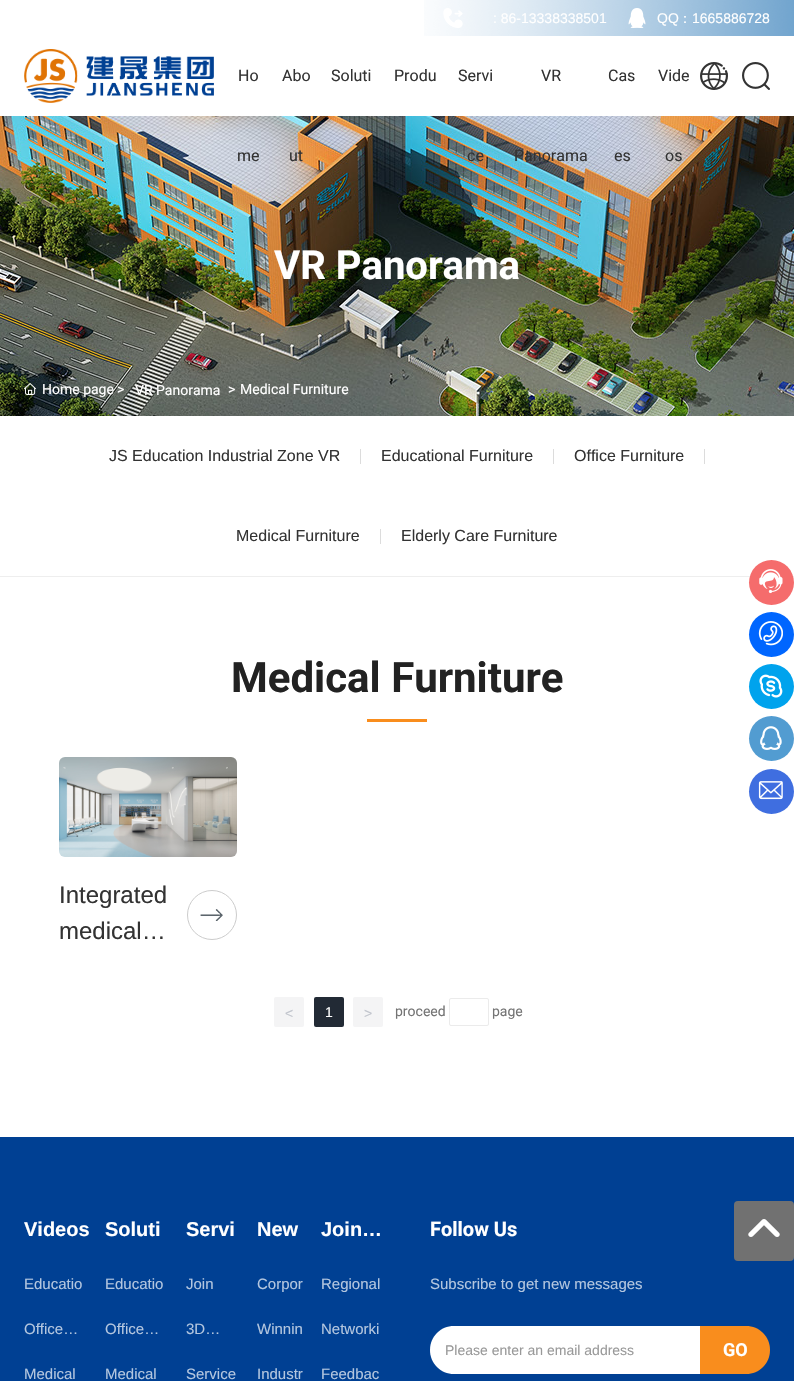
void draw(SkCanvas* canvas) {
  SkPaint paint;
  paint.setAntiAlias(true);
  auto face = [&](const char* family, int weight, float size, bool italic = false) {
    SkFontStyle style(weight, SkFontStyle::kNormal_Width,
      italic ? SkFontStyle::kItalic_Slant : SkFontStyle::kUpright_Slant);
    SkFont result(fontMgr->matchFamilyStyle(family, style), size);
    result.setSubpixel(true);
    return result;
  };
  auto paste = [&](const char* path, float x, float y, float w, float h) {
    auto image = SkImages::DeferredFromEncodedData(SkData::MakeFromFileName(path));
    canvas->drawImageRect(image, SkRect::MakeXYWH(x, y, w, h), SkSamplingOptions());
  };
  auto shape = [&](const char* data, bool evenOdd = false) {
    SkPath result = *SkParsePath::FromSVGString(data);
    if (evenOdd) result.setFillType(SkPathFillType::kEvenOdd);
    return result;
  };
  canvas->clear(0xffffffff);
  paste("img/1.png", 424, 0, 370, 36);
  paste("img/2.png", 443, 8, 20, 20);
  paste("img/3.png", 628, 8, 18, 20);
  paste("img/4.png", 24, 49, 190, 54);
  paste("img/5.png", 700, 62, 28, 28);
  paste("img/6.png", 742, 62, 28, 28);
  paste("img/7.png", 0, 116, 794, 300);
  paste("img/8.png", 24, 383, 12, 12);
  {
    const struct { float x, y, w, h; SkColor color; } items[] = {
      {0, 576, 794, 1, 0xffeeeeee},
      {360, 449, 1, 15, 0xffdcdcdc},
      {553, 449, 1, 15, 0xffdcdcdc},
      {704, 449, 1, 15, 0xffdcdcdc},
      {380, 529, 1, 15, 0xffdcdcdc},
      {367, 719, 60, 3, 0xfff98d1d},
    };
    for (auto [x, y, w, h, color] : items) {
      paint.setColor(color);
      canvas->drawRect(SkRect::MakeXYWH(x, y, w, h), paint);
    }
  }
  paste("img/9.png", 59, 757, 178, 100);
  paste("img/10.png", 200, 909, 23, 12);
  paint.setStroke(true);
  paint.setStrokeWidth(1);
  paint.setColor(0xffcccccc);
  canvas->drawCircle(212, 915, 24.5f, paint);
  paint.setStroke(false);
  paint.setColor(0xfff4f4f5);
  canvas->drawRoundRect(SkRect::MakeXYWH(274, 997, 30, 30), 2, 2, paint);
  paint.setColor(0xff222a35);
  canvas->drawRoundRect(SkRect::MakeXYWH(314, 997, 30, 30), 2, 2, paint);
  paint.setColor(0xfff4f4f5);
  canvas->drawRoundRect(SkRect::MakeXYWH(353, 997, 30, 30), 2, 2, paint);
  paint.setStroke(true);
  paint.setColor(0xffebebeb);
  canvas->drawRoundRect(SkRect::MakeXYWH(449.5f, 998.5f, 39, 27), 1.5f, 1.5f, paint);
  paint.setStroke(false);
  paint.setColor(0xff004093);
  canvas->drawRect(SkRect::MakeXYWH(0, 1137, 794, 244), paint);
  paint.setColor(0xffffffff);
  canvas->drawPath(shape("M454 1326H700V1374H454C440.5 1374 430 1363.5 430 1350C430 1336.5 440.5 1326 454 1326Z"), paint);
  paint.setColor(0xfff98d1d);
  canvas->drawPath(shape("M700 1326H746C759.5 1326 770 1336.5 770 1350C770 1363.5 759.5 1374 746 1374H700Z"), paint);
  paint.setColor(0xff717171);
  canvas->drawRoundRect(SkRect::MakeXYWH(734, 1201, 60, 60), 4, 4, paint);
  paste("img/11.png", 748, 1219, 32, 18);
  paint.setColor(0xfff56c6c);
  canvas->drawCircle(771.5f, 582.5f, 22.5f, paint);
  paste("img/12.png", 759, 569, 24, 25);
  paint.setColor(0xff0066ff);
  canvas->drawCircle(771.5f, 634.5f, 22.5f, paint);
  paste("img/13.png", 758, 621, 25, 25);
  paint.setColor(0xff00a3ed);
  canvas->drawCircle(771.5f, 686.5f, 22.5f, paint);
  paste("img/14.png", 759, 674, 24, 24);
  paint.setColor(0xff529cd1);
  canvas->drawCircle(771.5f, 738.5f, 22.5f, paint);
  paste("img/15.png", 760, 726, 22, 24);
  paint.setColor(0xff3f6ee0);
  canvas->drawCircle(771.5f, 791.5f, 22.5f, paint);
  paste("img/16.png", 758, 781, 25, 19);
  auto f0 = face("Liberation Sans", 400, 14);
  paint.setColor(0xffffffff);
  canvas->drawString(": 86-13338338501", 493, 23, f0, paint);
  canvas->drawString("QQ", 657, 23, f0, paint);
  auto f1 = face("WenQuanYi Zen Hei", 500, 14);
  canvas->drawString("：", 678, 23, f1, paint);
  canvas->drawString("1665886728", 692, 23, f0, paint);
  auto f2 = face("Roboto", 400, 16);
  paint.setColor(0xff333333);
  {
    const struct { const char* s; float x, y; } items[] = {
      {"Ho", 238, 81},
      {"me", 237, 161},
      {"Abo", 282, 81},
      {"ut", 289, 161},
      {"Soluti", 331, 81},
      {"Produ", 394, 81},
      {"Servi", 458, 81},
      {"ce", 467, 161},
      {"VR", 541, 81},
      {"Panorama", 514, 161},
      {"Cas", 608, 81},
      {"es", 614, 161},
      {"Vide", 658, 81},
      {"os", 665, 161},
    };
    for (auto [s, x, y] : items) {
      canvas->drawString(s, x, y, f2, paint);
    }
  }
  auto f3 = face("Roboto", 700, 40);
  paint.setColor(0xffffffff);
  canvas->drawString("VR Panorama", 274, 279, f3, paint);
  auto f4 = face("Roboto", 400, 14);
  {
    const struct { const char* s; float x, y; } items[] = {
      {"Home page", 42, 394},
      {">", 117, 394},
      {"VR Panorama", 135, 395},
      {">", 228, 394},
      {"Medical Furniture", 240, 394},
    };
    for (auto [s, x, y] : items) {
      canvas->drawString(s, x, y, f4, paint);
    }
  }
  auto f5 = face("Liberation Sans", 400, 16);
  paint.setColor(0xff333333);
  {
    const struct { const char* s; float x, y; } items[] = {
      {"JS Education Industrial Zone VR", 109, 461},
      {"Educational Furniture", 381, 461},
      {"Office Furniture", 574, 461},
      {"Medical Furniture", 236, 541},
      {"Elderly Care Furniture", 401, 541},
    };
    for (auto [s, x, y] : items) {
      canvas->drawString(s, x, y, f5, paint);
    }
  }
  auto f6 = face("Roboto", 700, 42);
  paint.setColor(0xff222222);
  canvas->drawString("Medical Furniture", 231, 692, f6, paint);
  auto f7 = face("Liberation Sans", 400, 24);
  paint.setColor(0xff333333);
  canvas->drawString("Integrated", 59, 903, f7, paint);
  canvas->drawString("medical…", 59, 939, f7, paint);
  paint.setColor(0xffc0c4cc);
  canvas->drawString("<", 285, 1018, f0, paint);
  paint.setColor(0xffffffff);
  canvas->drawString("1", 325, 1017, f0, paint);
  paint.setColor(0xffc0c4cc);
  canvas->drawString(">", 364, 1018, f0, paint);
  paint.setColor(0xff747474);
  canvas->drawString("proceed", 395, 1016, f4, paint);
  canvas->drawString("page", 492, 1016, f4, paint);
  auto f8 = face("Liberation Sans", 700, 20);
  paint.setColor(0xffffffff);
  canvas->drawString("Videos", 24, 1236, f8, paint);
  auto f9 = face("Liberation Sans", 400, 15);
  paint.setColor(0xffb3c6df);
  {
    const struct { const char* s; float x, y; } items[] = {
      {"Educatio", 24, 1289},
      {"Office…", 24, 1334},
      {"Medical", 24, 1379},
    };
    for (auto [s, x, y] : items) {
      canvas->drawString(s, x, y, f9, paint);
    }
  }
  paint.setColor(0xffffffff);
  canvas->drawString("Soluti", 105, 1236, f8, paint);
  paint.setColor(0xffb3c6df);
  {
    const struct { const char* s; float x, y; } items[] = {
      {"Educatio", 105, 1289},
      {"Office…", 105, 1334},
      {"Medical", 105, 1379},
    };
    for (auto [s, x, y] : items) {
      canvas->drawString(s, x, y, f9, paint);
    }
  }
  paint.setColor(0xffffffff);
  canvas->drawString("Servi", 186, 1236, f8, paint);
  paint.setColor(0xffb3c6df);
  {
    const struct { const char* s; float x, y; } items[] = {
      {"Join", 186, 1289},
      {"3D…", 186, 1334},
      {"Service", 186, 1379},
    };
    for (auto [s, x, y] : items) {
      canvas->drawString(s, x, y, f9, paint);
    }
  }
  paint.setColor(0xffffffff);
  canvas->drawString("New", 257, 1236, f8, paint);
  paint.setColor(0xffb3c6df);
  {
    const struct { const char* s; float x, y; } items[] = {
      {"Corpor", 257, 1289},
      {"Winnin", 257, 1334},
      {"Industr", 257, 1379},
    };
    for (auto [s, x, y] : items) {
      canvas->drawString(s, x, y, f9, paint);
    }
  }
  paint.setColor(0xffffffff);
  canvas->drawString("Join…", 321, 1236, f8, paint);
  paint.setColor(0xffb3c6df);
  {
    const struct { const char* s; float x, y; } items[] = {
      {"Regional", 321, 1289},
      {"Networki", 321, 1334},
      {"Feedbac", 321, 1379},
    };
    for (auto [s, x, y] : items) {
      canvas->drawString(s, x, y, f9, paint);
    }
  }
  auto f10 = face("Roboto", 700, 20);
  paint.setColor(0xffffffff);
  canvas->drawString("Follow Us", 430, 1236, f10, paint);
  paint.setColor(0xffb3c6df);
  canvas->drawString("Subscribe to get new messages", 430, 1289, f9, paint);
  paint.setColor(0xff999999);
  canvas->drawString("Please enter an email address", 445, 1355, f0, paint);
  auto f11 = face("Roboto", 700, 18);
  paint.setColor(0xffffffff);
  canvas->drawString("GO", 723, 1356, f11, paint);
}
